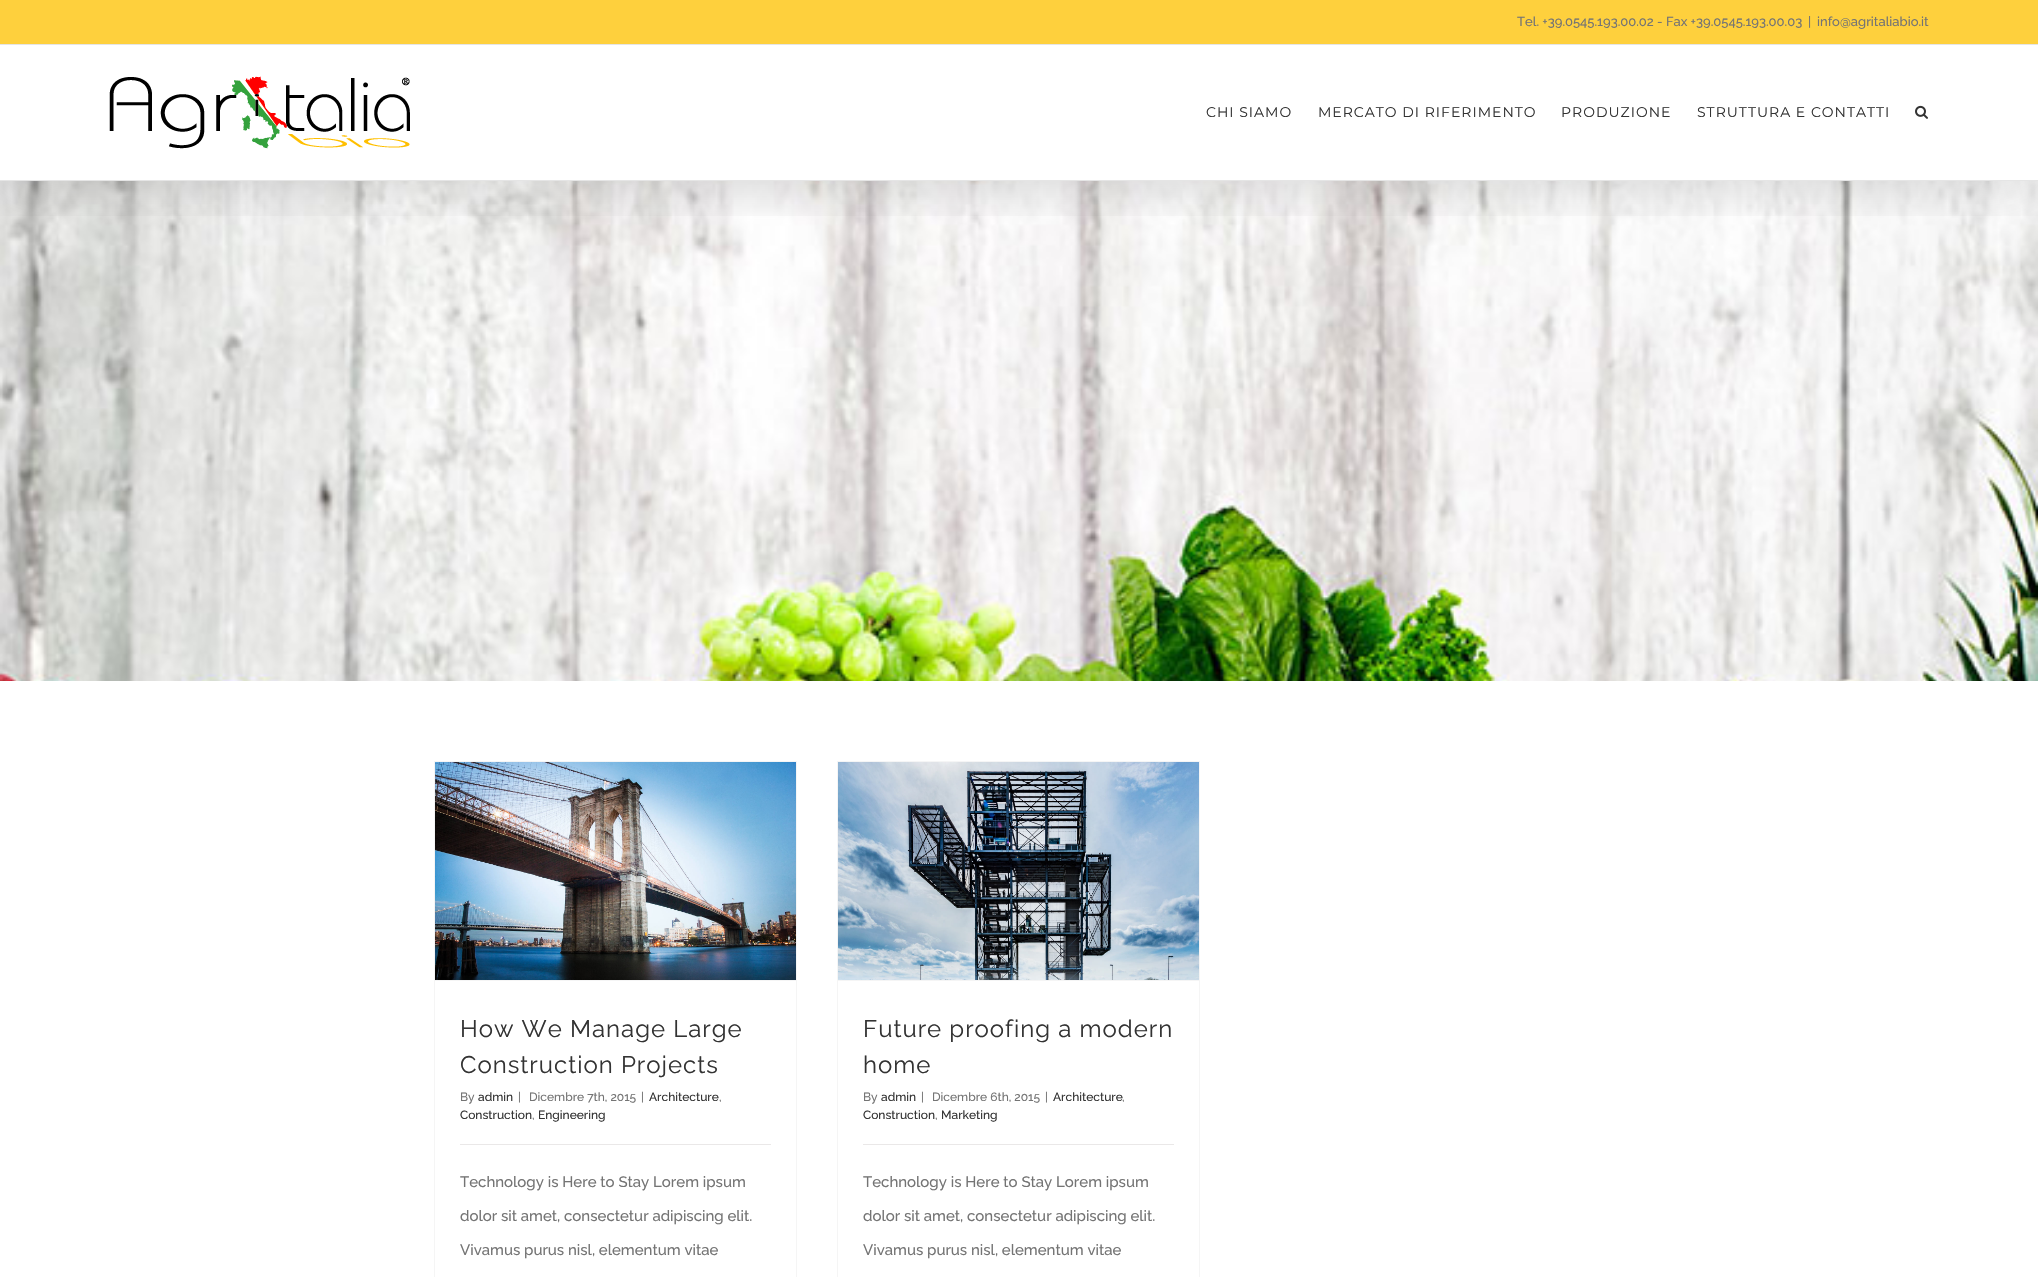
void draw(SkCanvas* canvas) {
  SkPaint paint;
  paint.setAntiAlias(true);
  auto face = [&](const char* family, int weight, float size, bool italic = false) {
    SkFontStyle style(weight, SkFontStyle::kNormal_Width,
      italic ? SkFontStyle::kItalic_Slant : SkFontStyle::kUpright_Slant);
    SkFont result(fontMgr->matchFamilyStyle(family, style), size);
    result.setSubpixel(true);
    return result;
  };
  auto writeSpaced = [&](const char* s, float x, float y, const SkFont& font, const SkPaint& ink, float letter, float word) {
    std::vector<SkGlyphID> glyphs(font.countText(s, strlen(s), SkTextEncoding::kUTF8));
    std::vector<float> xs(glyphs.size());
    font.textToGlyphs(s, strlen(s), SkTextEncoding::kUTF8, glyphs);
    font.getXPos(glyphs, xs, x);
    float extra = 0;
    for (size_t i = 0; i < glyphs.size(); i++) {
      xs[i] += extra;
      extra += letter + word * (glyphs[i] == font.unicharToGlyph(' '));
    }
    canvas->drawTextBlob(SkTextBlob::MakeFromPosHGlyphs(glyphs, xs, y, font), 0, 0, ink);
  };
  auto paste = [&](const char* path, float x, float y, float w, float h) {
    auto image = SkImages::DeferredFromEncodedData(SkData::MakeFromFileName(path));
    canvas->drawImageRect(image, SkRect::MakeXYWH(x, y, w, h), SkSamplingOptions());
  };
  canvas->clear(0xffffffff);
  paste("img/3.png", 0, 181, 2038, 500);
  canvas->save();
  canvas->clipRect(SkRect::MakeXYWH(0, 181, 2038, 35));
  paint.setColor(0x24000000);
  paint.setMaskFilter(SkMaskFilter::MakeBlur(kNormal_SkBlurStyle, 25));
  canvas->drawRect(SkRect::MakeXYWH(2, 12, 2034, 177), paint);
  paint.setMaskFilter(nullptr);
  canvas->restore();
  {
    const struct { float x, y, w, h; SkColor color; } items[] = {
      {0, 0, 2038, 44, 0xfffed03d},
      {0, 44, 2038, 1, 0xffe5e5e5},
      {0, 180, 2038, 1, 0xffe5e5e5},
    };
    for (auto [x, y, w, h, color] : items) {
      paint.setColor(color);
      canvas->drawRect(SkRect::MakeXYWH(x, y, w, h), paint);
    }
  }
  paste("img/1.png", 109, 76, 301, 73);
  paste("img/2.png", 1915, 105, 13, 14);
  {
    const struct { float x, y, w, h; SkColor color; } items[] = {
      {434, 761, 363, 1, 0xfff5f5f5},
      {796, 761, 1, 516, 0xfff5f5f5},
      {434, 761, 1, 516, 0xfff5f5f5},
      {435, 980, 361, 1, 0xfff5f5f5},
    };
    for (auto [x, y, w, h, color] : items) {
      paint.setColor(color);
      canvas->drawRect(SkRect::MakeXYWH(x, y, w, h), paint);
    }
  }
  paste("img/4.png", 435, 762, 361, 218);
  {
    const struct { float x, y, w, h; SkColor color; } items[] = {
      {460, 1144, 311, 1, 0xffeae8e8},
      {837, 761, 363, 1, 0xfff5f5f5},
      {1199, 761, 1, 516, 0xfff5f5f5},
      {837, 761, 1, 516, 0xfff5f5f5},
      {838, 980, 361, 1, 0xfff5f5f5},
    };
    for (auto [x, y, w, h, color] : items) {
      paint.setColor(color);
      canvas->drawRect(SkRect::MakeXYWH(x, y, w, h), paint);
    }
  }
  paste("img/5.png", 838, 762, 361, 218);
  paint.setColor(0xffeae8e8);
  canvas->drawRect(SkRect::MakeXYWH(863, 1144, 311, 1), paint);
  auto f0 = face("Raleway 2", 100, 13);
  paint.setColor(0xff747474);
  {
    const struct { const char* s; float x, y; } items[] = {
      {"Tel. +39.0545.193.00.02 - Fax +39.0545.193.00.03", 1517, 26},
      {"|", 1808, 26},
      {"info@agritaliabio.it", 1817, 26},
    };
    for (auto [s, x, y] : items) {
      canvas->drawString(s, x, y, f0, paint);
    }
  }
  auto f1 = face("Montserrat", 100, 14);
  paint.setColor(0xff333333);
  {
    const struct { const char* s; float x, y; } items[] = {
      {"CHI SIAMO", 1206, 117},
      {"MERCATO DI RIFERIMENTO", 1318, 117},
      {"PRODUZIONE", 1561, 117},
      {"STRUTTURA E CONTATTI", 1697, 117},
    };
    for (auto [s, x, y] : items) {
      writeSpaced(s, x, y, f1, paint, 1, 0);
    }
  }
  auto f2 = face("Raleway", 100, 24);
  writeSpaced("How We Manage Large", 460, 1037, f2, paint, 1, 0);
  writeSpaced("Construction Projects", 460, 1073, f2, paint, 1, 0);
  auto f3 = face("Raleway 2", 100, 12);
  paint.setColor(0xff747474);
  canvas->drawString("By", 460, 1101, f3, paint);
  paint.setColor(0xff333333);
  canvas->drawString("admin", 478, 1101, f3, paint);
  paint.setColor(0xff747474);
  {
    const struct { const char* s; float x, y; } items[] = {
      {"|", 518, 1101},
      {"Dicembre 7th, 2015", 529, 1101},
      {"|", 641, 1101},
    };
    for (auto [s, x, y] : items) {
      canvas->drawString(s, x, y, f3, paint);
    }
  }
  paint.setColor(0xff333333);
  canvas->drawString("Architecture", 649, 1101, f3, paint);
  paint.setColor(0xff747474);
  canvas->drawString(",", 719, 1101, f3, paint);
  paint.setColor(0xff333333);
  canvas->drawString("Construction", 460, 1119, f3, paint);
  paint.setColor(0xff747474);
  canvas->drawString(",", 532, 1119, f3, paint);
  paint.setColor(0xff333333);
  canvas->drawString("Engineering", 538, 1119, f3, paint);
  auto f4 = face("Raleway 2", 100, 15);
  paint.setColor(0xff747474);
  {
    const struct { const char* s; float x, y; } items[] = {
      {"Technology is Here to Stay Lorem ipsum", 460, 1187},
      {"dolor sit amet, consectetur adipiscing elit.", 460, 1221},
      {"Vivamus purus nisl, elementum vitae", 460, 1255},
    };
    for (auto [s, x, y] : items) {
      canvas->drawString(s, x, y, f4, paint);
    }
  }
  paint.setColor(0xff333333);
  writeSpaced("Future proofing a modern", 863, 1037, f2, paint, 1, 0);
  writeSpaced("home", 863, 1073, f2, paint, 1, 0);
  paint.setColor(0xff747474);
  canvas->drawString("By", 863, 1101, f3, paint);
  paint.setColor(0xff333333);
  canvas->drawString("admin", 881, 1101, f3, paint);
  paint.setColor(0xff747474);
  {
    const struct { const char* s; float x, y; } items[] = {
      {"|", 921, 1101},
      {"Dicembre 6th, 2015", 932, 1101},
      {"|", 1045, 1101},
    };
    for (auto [s, x, y] : items) {
      canvas->drawString(s, x, y, f3, paint);
    }
  }
  paint.setColor(0xff333333);
  canvas->drawString("Architecture", 1053, 1101, f3, paint);
  paint.setColor(0xff747474);
  canvas->drawString(",", 1122, 1101, f3, paint);
  paint.setColor(0xff333333);
  canvas->drawString("Construction", 863, 1119, f3, paint);
  paint.setColor(0xff747474);
  canvas->drawString(",", 935, 1119, f3, paint);
  paint.setColor(0xff333333);
  canvas->drawString("Marketing", 941, 1119, f3, paint);
  paint.setColor(0xff747474);
  {
    const struct { const char* s; float x, y; } items[] = {
      {"Technology is Here to Stay Lorem ipsum", 863, 1187},
      {"dolor sit amet, consectetur adipiscing elit.", 863, 1221},
      {"Vivamus purus nisl, elementum vitae", 863, 1255},
    };
    for (auto [s, x, y] : items) {
      canvas->drawString(s, x, y, f4, paint);
    }
  }
}
